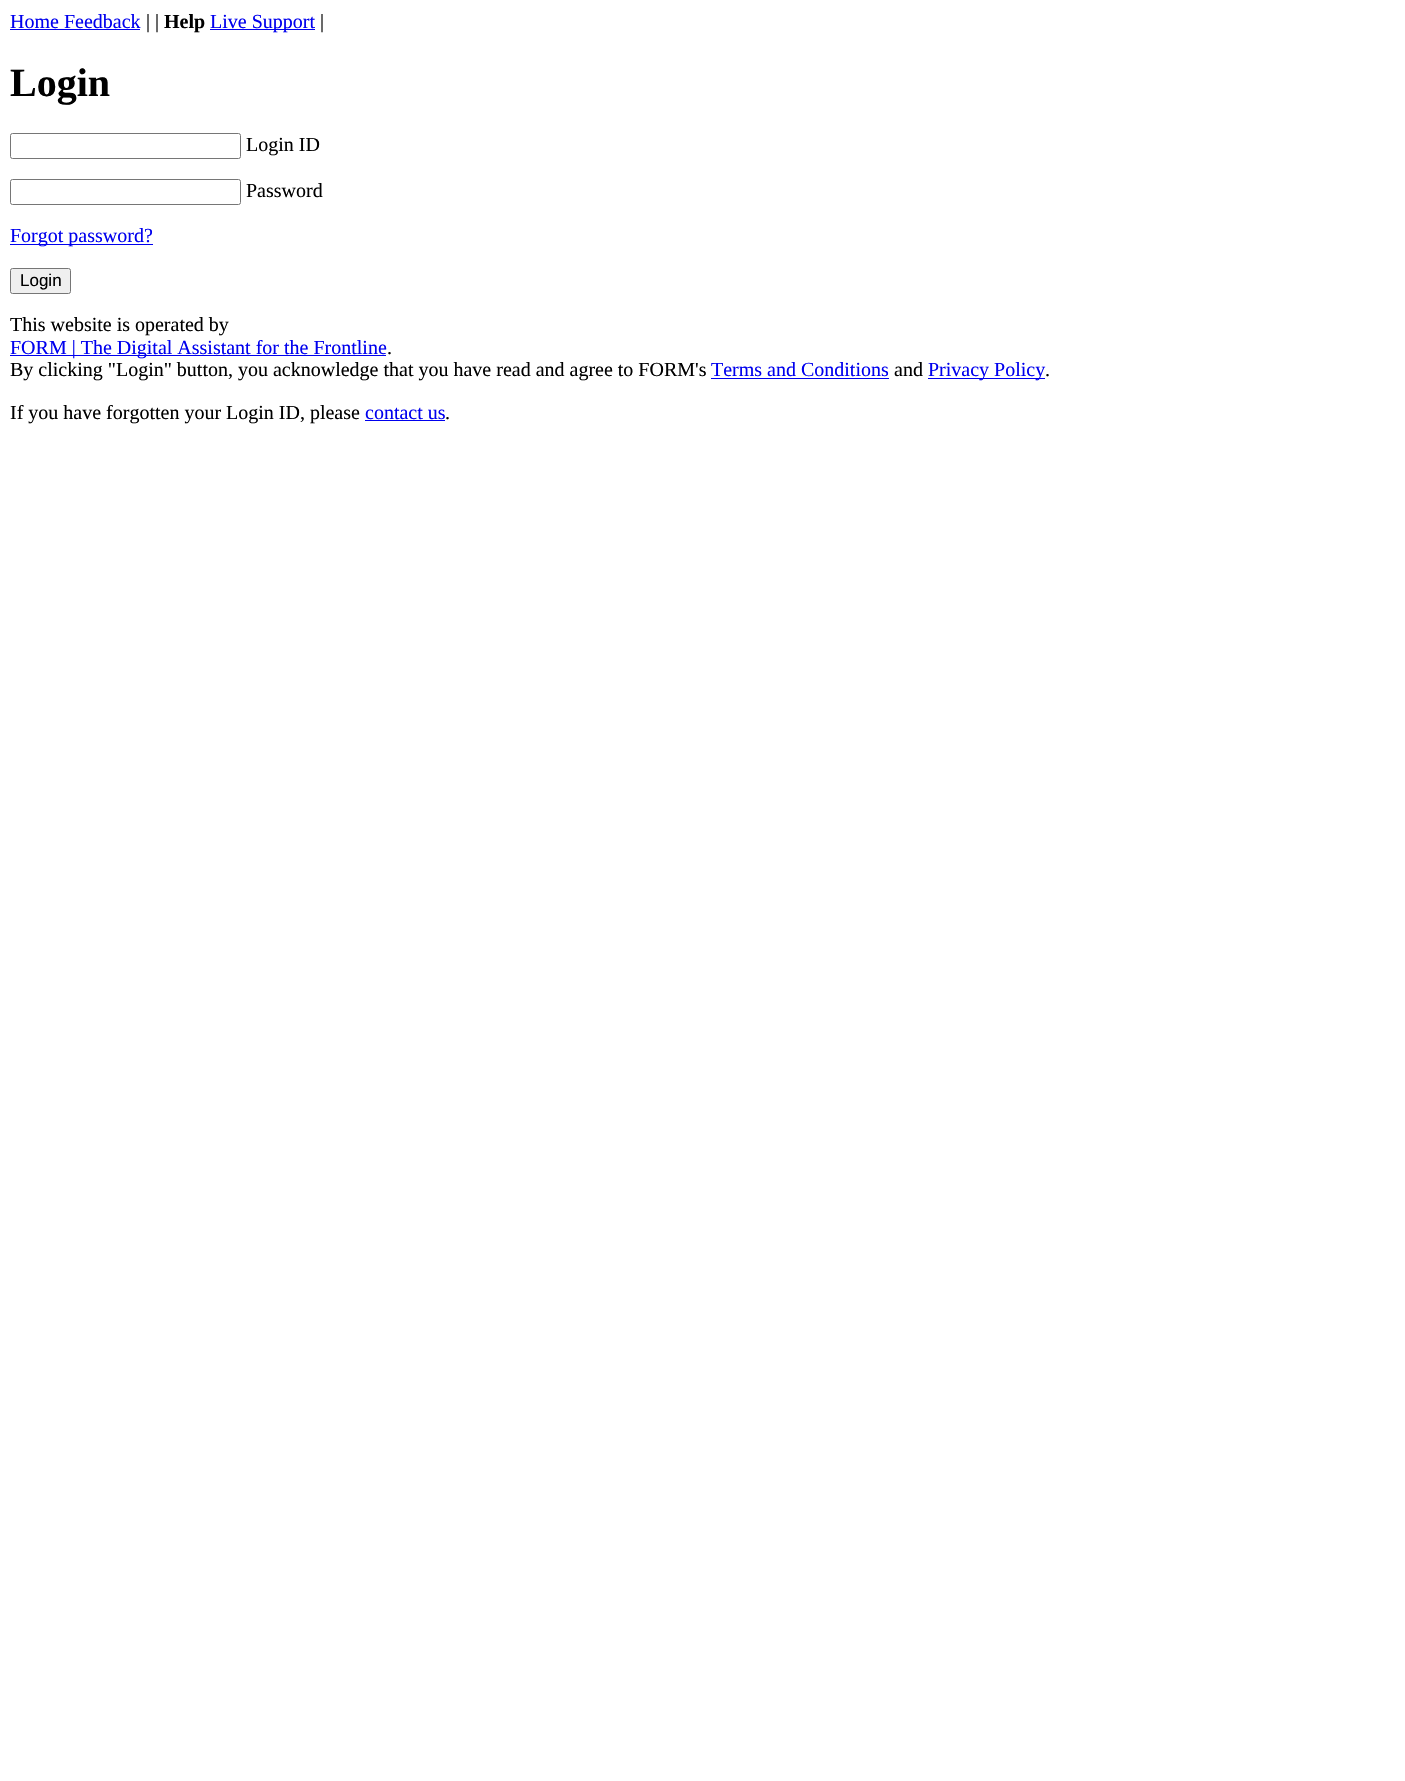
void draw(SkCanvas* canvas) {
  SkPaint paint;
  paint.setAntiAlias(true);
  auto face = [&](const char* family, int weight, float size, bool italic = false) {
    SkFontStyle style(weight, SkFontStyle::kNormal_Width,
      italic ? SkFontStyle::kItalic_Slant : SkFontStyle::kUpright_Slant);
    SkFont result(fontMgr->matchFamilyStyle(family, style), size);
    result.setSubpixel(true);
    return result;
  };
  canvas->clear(0xffffffff);
  paint.setColor(0xff0000ee);
  canvas->drawRect(SkRect::MakeXYWH(10, 29, 130, 1), paint);
  canvas->drawRect(SkRect::MakeXYWH(210, 29, 105, 1), paint);
  paint.setStroke(true);
  paint.setStrokeWidth(1);
  paint.setColor(0xff767676);
  canvas->drawRoundRect(SkRect::MakeXYWH(10.5f, 133.5f, 230, 25), 2, 2, paint);
  canvas->drawRoundRect(SkRect::MakeXYWH(10.5f, 179.5f, 230, 25), 2, 2, paint);
  paint.setStroke(false);
  paint.setColor(0xff0000ee);
  canvas->drawRect(SkRect::MakeXYWH(10, 244, 143, 1), paint);
  paint.setColor(0xffefefef);
  canvas->drawRoundRect(SkRect::MakeXYWH(10.5f, 268.5f, 60, 25), 2, 2, paint);
  paint.setStroke(true);
  paint.setColor(0xff767676);
  canvas->drawRoundRect(SkRect::MakeXYWH(10.5f, 268.5f, 60, 25), 2, 2, paint);
  paint.setStroke(false);
  {
    const struct { float x, y, w, h; SkColor color; } items[] = {
      {10, 355, 376, 1, 0xff0000ee},
      {711, 378, 178, 1, 0xff0000ee},
      {928, 378, 117, 1, 0xff0000ee},
      {365, 420, 80, 1, 0xff0000ee},
    };
    for (auto [x, y, w, h, color] : items) {
      paint.setColor(color);
      canvas->drawRect(SkRect::MakeXYWH(x, y, w, h), paint);
    }
  }
  auto f0 = face("Liberation Serif", 400, 20);
  canvas->drawString("Home Feedback", 10, 28, f0, paint);
  paint.setColor(0xff000000);
  canvas->drawString("| |", 146, 28, f0, paint);
  auto f1 = face("Liberation Serif", 700, 20);
  canvas->drawString("Help", 164, 28, f1, paint);
  paint.setColor(0xff0000ee);
  canvas->drawString("Live Support", 210, 28, f0, paint);
  paint.setColor(0xff000000);
  canvas->drawString("|", 320, 28, f0, paint);
  auto f2 = face("Liberation Serif", 700, 40);
  canvas->drawString("Login", 10, 96, f2, paint);
  canvas->drawString("Login ID", 246, 151, f0, paint);
  canvas->drawString("Password", 246, 197, f0, paint);
  paint.setColor(0xff0000ee);
  canvas->drawString("Forgot password?", 10, 242, f0, paint);
  auto f3 = face("Liberation Sans", 400, 17);
  paint.setColor(0xff000000);
  canvas->drawString("Login", 20, 286, f3, paint);
  canvas->drawString("This website is operated by", 10, 331, f0, paint);
  paint.setColor(0xff0000ee);
  canvas->drawString("FORM | The Digital Assistant for the Frontline", 10, 354, f0, paint);
  paint.setColor(0xff000000);
  canvas->drawString(".", 387, 354, f0, paint);
  canvas->drawString("By clicking \"Login\" button, you acknowledge that you have read and agree to FORM's", 10, 376, f0, paint);
  paint.setColor(0xff0000ee);
  canvas->drawString("Terms and Conditions", 711, 376, f0, paint);
  paint.setColor(0xff000000);
  canvas->drawString("and", 894, 376, f0, paint);
  paint.setColor(0xff0000ee);
  canvas->drawString("Privacy Policy", 928, 376, f0, paint);
  paint.setColor(0xff000000);
  canvas->drawString(".", 1045, 376, f0, paint);
  canvas->drawString("If you have forgotten your Login ID, please", 10, 419, f0, paint);
  paint.setColor(0xff0000ee);
  canvas->drawString("contact us", 365, 419, f0, paint);
  paint.setColor(0xff000000);
  canvas->drawString(".", 445, 419, f0, paint);
}
